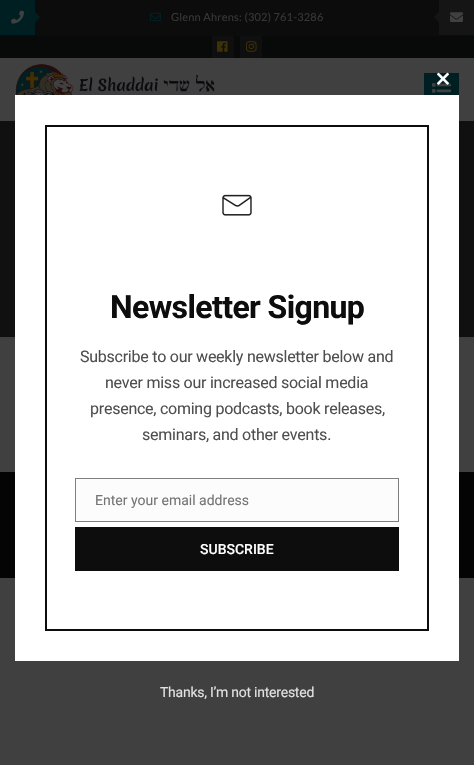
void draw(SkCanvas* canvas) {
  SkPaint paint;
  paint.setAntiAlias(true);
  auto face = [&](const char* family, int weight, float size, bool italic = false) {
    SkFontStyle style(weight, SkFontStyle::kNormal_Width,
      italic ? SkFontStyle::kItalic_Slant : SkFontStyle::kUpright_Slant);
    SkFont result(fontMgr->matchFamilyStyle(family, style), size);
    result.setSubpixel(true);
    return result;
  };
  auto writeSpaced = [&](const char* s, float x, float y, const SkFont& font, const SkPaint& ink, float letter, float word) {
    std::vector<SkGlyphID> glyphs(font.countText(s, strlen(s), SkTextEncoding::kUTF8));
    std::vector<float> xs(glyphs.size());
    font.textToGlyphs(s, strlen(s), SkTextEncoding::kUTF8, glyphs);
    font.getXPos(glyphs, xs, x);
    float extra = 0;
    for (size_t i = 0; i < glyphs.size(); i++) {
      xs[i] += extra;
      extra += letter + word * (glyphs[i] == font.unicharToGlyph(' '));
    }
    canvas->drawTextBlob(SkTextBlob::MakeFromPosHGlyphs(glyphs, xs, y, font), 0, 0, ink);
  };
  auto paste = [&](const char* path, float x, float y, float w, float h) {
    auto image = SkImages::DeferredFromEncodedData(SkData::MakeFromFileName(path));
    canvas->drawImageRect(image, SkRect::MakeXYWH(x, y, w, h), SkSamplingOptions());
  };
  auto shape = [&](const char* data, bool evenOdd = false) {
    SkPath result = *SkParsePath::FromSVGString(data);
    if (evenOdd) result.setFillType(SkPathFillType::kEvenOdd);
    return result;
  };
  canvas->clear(0xff404040);
  paint.setColor(0xff0c0c0c);
  canvas->drawRect(SkRect::MakeXYWH(0, 0, 474, 36), paint);
  paint.setColor(0xff001f22);
  canvas->drawRect(SkRect::MakeXYWH(0, 0, 35, 35), paint);
  paste("img/1.png", 11, 10, 13, 14);
  canvas->drawPath(shape("M35 22V12L40 17Z"), paint);
  paste("img/2.png", 150, 12, 11, 9);
  paint.setColor(0xff151515);
  canvas->drawRect(SkRect::MakeXYWH(439, 0, 35, 35), paint);
  canvas->drawPath(shape("M439 12V22L434 17Z"), paint);
  paste("img/3.png", 450, 12, 13, 10);
  paint.setColor(0xff080909);
  canvas->drawRect(SkRect::MakeXYWH(0, 36, 474, 22), paint);
  paint.setColor(0xff0f0f0f);
  canvas->drawRoundRect(SkRect::MakeXYWH(212, 36, 22, 22), 2, 2, paint);
  paste("img/4.png", 217, 41, 11, 11);
  canvas->drawRoundRect(SkRect::MakeXYWH(240, 36, 22, 22), 2, 2, paint);
  paste("img/5.png", 246, 41, 11, 11);
  paste("img/6.png", 15, 64, 200, 31);
  paint.setColor(0xff001f22);
  canvas->drawRect(SkRect::MakeXYWH(424, 73, 35, 22), paint);
  paste("img/7.png", 432, 83, 19, 10);
  paint.setColor(0xff101010);
  canvas->drawRect(SkRect::MakeXYWH(0, 121, 474, 216), paint);
  paste("img/8.png", 437, 72, 12, 13);
  {
    const struct { float x, y, w, h; SkColor color; } items[] = {
      {0, 472, 474, 106, 0xff040404},
      {15, 95, 444, 566, 0xffffffff},
      {45, 125, 384, 2, 0xff0d0d0d},
      {427, 125, 2, 506, 0xff0d0d0d},
      {45, 125, 2, 338, 0xff0d0d0d},
    };
    for (auto [x, y, w, h, color] : items) {
      paint.setColor(color);
      canvas->drawRect(SkRect::MakeXYWH(x, y, w, h), paint);
    }
  }
  paste("img/9.png", 222, 194, 30, 22);
  canvas->drawRect(SkRect::MakeXYWH(45, 629, 384, 2), paint);
  canvas->drawRect(SkRect::MakeXYWH(45, 463, 2, 168), paint);
  paint.setColor(0xfffcfcfc);
  canvas->drawRect(SkRect::MakeXYWH(75.5f, 478.5f, 323, 43), paint);
  paint.setStroke(true);
  paint.setStrokeWidth(1);
  paint.setColor(0xff7f7f7f);
  canvas->drawRect(SkRect::MakeXYWH(75.5f, 478.5f, 323, 43), paint);
  paint.setStroke(false);
  paint.setColor(0xff0d0d0d);
  canvas->drawRect(SkRect::MakeXYWH(75, 527, 324, 44), paint);
  auto f0 = face("Lato", 400, 11);
  paint.setColor(0xff363636);
  writeSpaced("Glenn Ahrens: (302) 761-3286", 171, 21, f0, paint, 0.2f, 0);
  auto f1 = face("Roboto", 700, 32);
  paint.setColor(0xff0d0d0d);
  writeSpaced("Newsletter Signup", 110, 318, f1, paint, -0.6f, 0);
  auto f2 = face("Roboto", 400, 16);
  paint.setColor(0xff4f4f4f);
  {
    const struct { const char* s; float x, y; } items[] = {
      {"Subscribe to our weekly newsletter below and", 80, 362},
      {"never miss our increased social media", 105, 388},
      {"presence, coming podcasts, book releases,", 90, 414},
      {"seminars, and other events.", 142, 440},
    };
    for (auto [s, x, y] : items) {
      writeSpaced(s, x, y, f2, paint, -0.25f, 0);
    }
  }
  auto f3 = face("Roboto", 400, 14);
  paint.setColor(0xff757575);
  canvas->drawString("Enter your email address", 95, 505, f3, paint);
  auto f4 = face("Roboto", 500, 14);
  paint.setColor(0xffffffff);
  canvas->drawString("SUBSCRIBE", 200, 554, f4, paint);
  paint.setColor(0xffe1e1e1);
  writeSpaced("Thanks, I’m not interested", 160, 697, f3, paint, -0.25f, 0);
}
